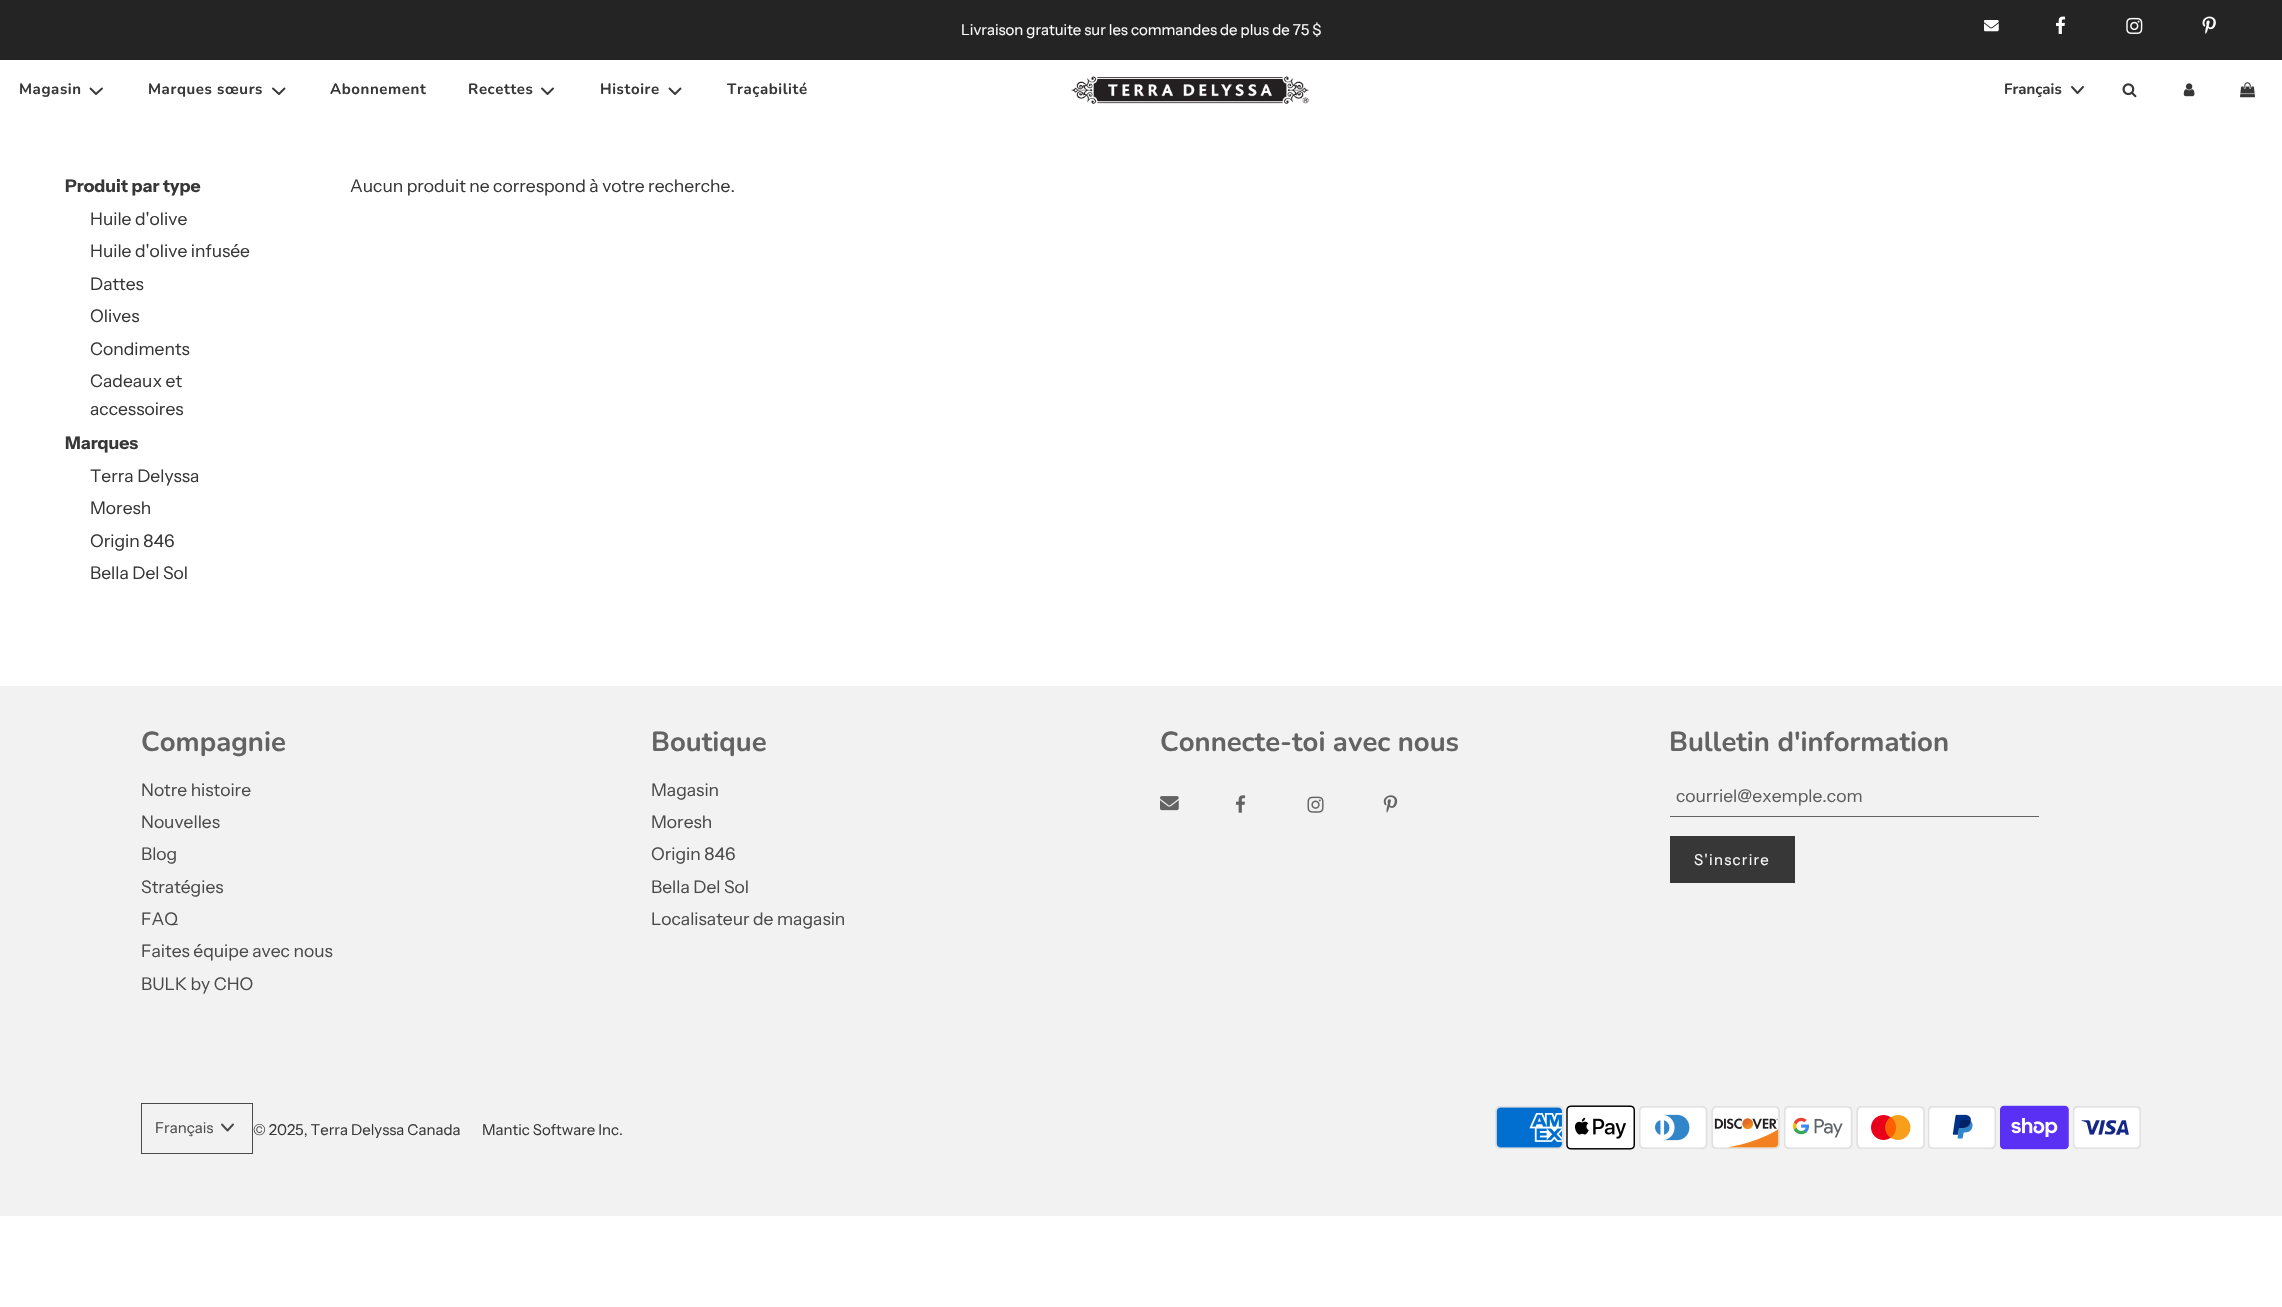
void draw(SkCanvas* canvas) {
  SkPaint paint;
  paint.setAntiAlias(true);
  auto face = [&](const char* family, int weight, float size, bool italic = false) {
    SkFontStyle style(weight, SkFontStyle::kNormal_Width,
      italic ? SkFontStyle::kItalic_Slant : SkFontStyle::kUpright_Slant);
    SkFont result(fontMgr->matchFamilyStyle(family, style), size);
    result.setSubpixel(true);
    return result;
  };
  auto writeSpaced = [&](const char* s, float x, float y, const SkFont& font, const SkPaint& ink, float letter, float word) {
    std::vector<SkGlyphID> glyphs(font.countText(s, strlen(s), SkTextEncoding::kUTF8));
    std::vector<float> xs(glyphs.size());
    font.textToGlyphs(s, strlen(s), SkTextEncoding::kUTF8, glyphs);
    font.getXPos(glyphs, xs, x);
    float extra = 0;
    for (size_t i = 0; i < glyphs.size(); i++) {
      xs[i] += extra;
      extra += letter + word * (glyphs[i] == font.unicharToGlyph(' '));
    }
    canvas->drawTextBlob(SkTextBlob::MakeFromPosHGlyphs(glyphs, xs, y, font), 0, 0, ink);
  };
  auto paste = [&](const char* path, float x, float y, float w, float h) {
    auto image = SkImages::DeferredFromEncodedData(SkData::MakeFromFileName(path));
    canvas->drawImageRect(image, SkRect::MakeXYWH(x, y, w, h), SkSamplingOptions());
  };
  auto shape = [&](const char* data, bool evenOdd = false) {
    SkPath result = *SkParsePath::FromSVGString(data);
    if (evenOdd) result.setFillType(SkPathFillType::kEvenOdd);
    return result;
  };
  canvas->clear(0xffffffff);
  paint.setColor(0xff242424);
  canvas->drawRect(SkRect::MakeXYWH(0, 0, 2282, 60), paint);
  paste("img/1.png", 1984, 20, 15, 12);
  paste("img/2.png", 2056, 16, 10, 18);
  paste("img/3.png", 2126, 17, 17, 17);
  paste("img/4.png", 2202, 16, 14, 18);
  paint.setStroke(true);
  paint.setStrokeWidth(1.9f);
  paint.setStrokeCap(SkPaint::kRound_Cap);
  paint.setStrokeJoin(SkPaint::kRound_Join);
  paint.setColor(0xff373737);
  canvas->drawPath(shape("M90.5 88.5L96 94L102 88.5"), paint);
  canvas->drawPath(shape("M273 88.5L279 94L284.5 88.5"), paint);
  canvas->drawPath(shape("M542 88.5L547.5 94L553 88.5"), paint);
  canvas->drawPath(shape("M669.5 88.5L675 94L680.5 88.5"), paint);
  paste("img/5.png", 1071, 76, 238, 28);
  canvas->drawPath(shape("M2072 87L2077.5 93L2083 87"), paint);
  paste("img/6.png", 2122, 83, 15, 15);
  paste("img/7.png", 2183, 83, 12, 14);
  paste("img/8.png", 2240, 82, 15, 16);
  paint.setStroke(false);
  paint.setColor(0xfff2f2f2);
  canvas->drawRect(SkRect::MakeXYWH(0, 686, 2282, 530), paint);
  paste("img/9.png", 1160, 796, 19, 15);
  paste("img/10.png", 1236, 795, 10, 18);
  paste("img/11.png", 1307, 796, 17, 17);
  paste("img/12.png", 1383, 795, 15, 18);
  paint.setColor(0xff636363);
  canvas->drawRect(SkRect::MakeXYWH(1670, 816, 369, 1), paint);
  paint.setColor(0xff373737);
  canvas->drawRect(SkRect::MakeXYWH(1670, 836, 125, 47), paint);
  paint.setStroke(true);
  paint.setStrokeWidth(1);
  paint.setStrokeCap(SkPaint::kButt_Cap);
  paint.setStrokeJoin(SkPaint::kMiter_Join);
  paint.setColor(0xff4a4a4a);
  canvas->drawRect(SkRect::MakeXYWH(141.5f, 1103.5f, 111, 50), paint);
  paint.setStrokeWidth(1.9f);
  paint.setStrokeCap(SkPaint::kRound_Cap);
  paint.setStrokeJoin(SkPaint::kRound_Join);
  canvas->drawPath(shape("M222 1124.5L227.5 1130.5L233 1124.5"), paint);
  paste("img/13.png", 1495, 1106, 69, 43);
  paste("img/14.png", 1566, 1105, 69, 45);
  paste("img/15.png", 1639, 1106, 69, 43);
  paste("img/16.png", 1711, 1106, 69, 43);
  paste("img/17.png", 1784, 1106, 69, 43);
  paste("img/18.png", 1856, 1106, 69, 43);
  paste("img/19.png", 1928, 1106, 68, 43);
  paste("img/20.png", 2000, 1105, 69, 45);
  paste("img/21.png", 2073, 1106, 68, 43);
  auto f0 = face("Instrument Sans", 400, 15);
  paint.setStroke(false);
  paint.setColor(0xffffffff);
  canvas->drawString("Livraison gratuite sur les commandes de plus de 75 $", 961, 35, f0, paint);
  auto f1 = face("Nunito", 700, 15);
  paint.setColor(0xff373737);
  {
    const struct { const char* s; float x, y; } items[] = {
      {"Magasin", 19, 94},
      {"Marques sœurs", 148, 94},
      {"Abonnement", 330, 94},
      {"Recettes", 468, 94},
      {"Histoire", 600, 94},
      {"Traçabilité", 727, 94},
    };
    for (auto [s, x, y] : items) {
      writeSpaced(s, x, y, f1, paint, 0.6f, 0);
    }
  }
  canvas->drawString("Français", 2004, 94, f1, paint);
  auto f2 = face("Instrument Sans", 700, 17.5f);
  canvas->drawString("Produit par type", 65, 192, f2, paint);
  auto f3 = face("Instrument Sans", 400, 17.5f);
  {
    const struct { const char* s; float x, y; } items[] = {
      {"Huile d'olive", 90, 225},
      {"Huile d'olive infusée", 90, 257},
      {"Dattes", 90, 290},
      {"Olives", 90, 322},
      {"Condiments", 90, 355},
      {"Cadeaux et", 90, 387},
      {"accessoires", 90, 415},
    };
    for (auto [s, x, y] : items) {
      canvas->drawString(s, x, y, f3, paint);
    }
  }
  canvas->drawString("Marques", 65, 449, f2, paint);
  {
    const struct { const char* s; float x, y; } items[] = {
      {"Terra Delyssa", 90, 482},
      {"Moresh", 90, 514},
      {"Origin 846", 90, 547},
      {"Bella Del Sol", 90, 579},
      {"Aucun produit ne correspond à votre recherche.", 350, 192},
    };
    for (auto [s, x, y] : items) {
      canvas->drawString(s, x, y, f3, paint);
    }
  }
  auto f4 = face("Nunito", 700, 27.5f);
  paint.setColor(0xff636363);
  canvas->drawString("Compagnie", 141, 751, f4, paint);
  paint.setColor(0xff4a4a4a);
  {
    const struct { const char* s; float x, y; } items[] = {
      {"Notre histoire", 141, 796},
      {"Nouvelles", 141, 828},
      {"Blog", 141, 860},
      {"Stratégies", 141, 893},
      {"FAQ", 141, 925},
      {"Faites équipe avec nous", 141, 957},
      {"BULK by CHO", 141, 990},
    };
    for (auto [s, x, y] : items) {
      canvas->drawString(s, x, y, f3, paint);
    }
  }
  paint.setColor(0xff636363);
  canvas->drawString("Boutique", 651, 751, f4, paint);
  paint.setColor(0xff4a4a4a);
  {
    const struct { const char* s; float x, y; } items[] = {
      {"Magasin", 651, 796},
      {"Moresh", 651, 828},
      {"Origin 846", 651, 860},
      {"Bella Del Sol", 651, 893},
      {"Localisateur de magasin", 651, 925},
    };
    for (auto [s, x, y] : items) {
      canvas->drawString(s, x, y, f3, paint);
    }
  }
  paint.setColor(0xff636363);
  canvas->drawString("Connecte-toi avec nous", 1160, 751, f4, paint);
  canvas->drawString("Bulletin d'information", 1669, 751, f4, paint);
  paint.setColor(0xff5c5c5c);
  canvas->drawString("courriel@exemple.com", 1676, 802, f3, paint);
  paint.setColor(0xffffffff);
  writeSpaced("S'inscrire", 1694, 865, f0, paint, 1.25f, 0);
  paint.setColor(0xff4a4a4a);
  canvas->drawString("Français", 155, 1133, f0, paint);
  paint.setColor(0xff373737);
  canvas->drawString("© 2025, Terra Delyssa Canada", 253, 1135, f0, paint);
  canvas->drawString("Mantic Software Inc.", 482, 1135, f0, paint);
}
